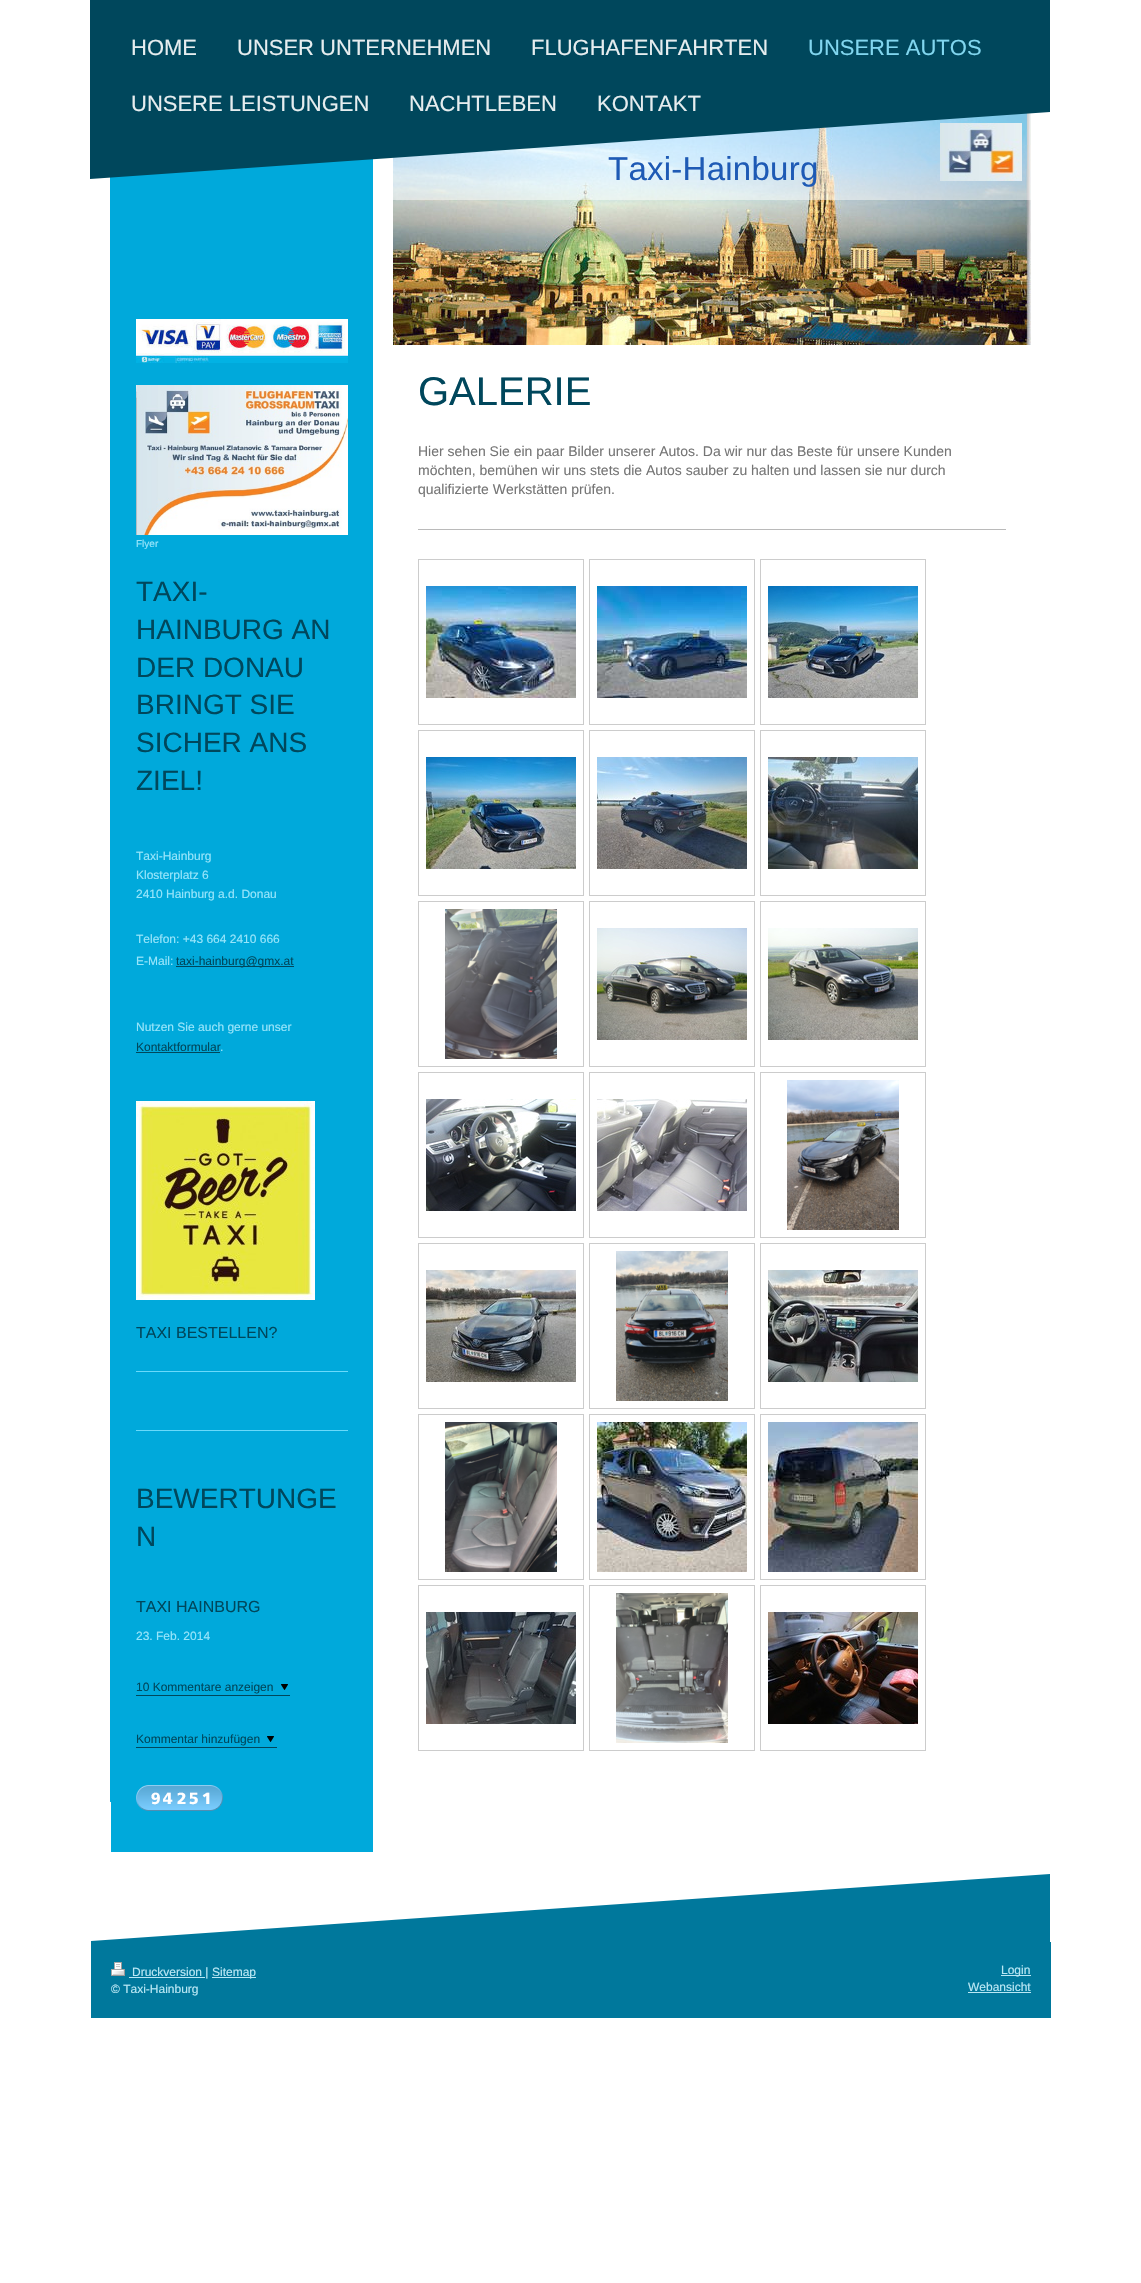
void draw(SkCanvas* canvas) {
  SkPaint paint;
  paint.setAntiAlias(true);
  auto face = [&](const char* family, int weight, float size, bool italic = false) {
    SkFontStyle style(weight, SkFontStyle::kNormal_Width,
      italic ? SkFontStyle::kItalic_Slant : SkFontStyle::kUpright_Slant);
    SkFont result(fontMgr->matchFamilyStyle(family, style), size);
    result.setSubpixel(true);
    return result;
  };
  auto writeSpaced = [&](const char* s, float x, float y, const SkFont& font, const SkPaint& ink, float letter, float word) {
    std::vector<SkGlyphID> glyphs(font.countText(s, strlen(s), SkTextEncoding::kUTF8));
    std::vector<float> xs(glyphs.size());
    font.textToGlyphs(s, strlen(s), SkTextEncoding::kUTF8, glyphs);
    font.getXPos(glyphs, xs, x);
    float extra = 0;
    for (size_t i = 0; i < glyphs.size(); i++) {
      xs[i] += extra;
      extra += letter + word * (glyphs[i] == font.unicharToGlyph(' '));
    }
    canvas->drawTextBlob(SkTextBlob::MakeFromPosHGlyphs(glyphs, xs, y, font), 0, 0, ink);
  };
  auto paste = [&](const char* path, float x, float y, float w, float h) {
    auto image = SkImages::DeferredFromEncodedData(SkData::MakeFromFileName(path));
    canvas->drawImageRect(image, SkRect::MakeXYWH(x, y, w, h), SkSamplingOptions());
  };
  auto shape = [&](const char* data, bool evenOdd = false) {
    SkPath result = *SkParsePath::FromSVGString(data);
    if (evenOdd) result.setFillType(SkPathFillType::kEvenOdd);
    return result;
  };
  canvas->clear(0xffffffff);
  paint.setColor(0xff00a9db);
  canvas->drawPath(shape("M110 169L373 151V1783L110 1802Z"), paint);
  paste("img/1.png", 393, 113, 638, 232);
  paint.setColor(0x80ffffff);
  canvas->drawRect(SkRect::MakeXYWH(393, 113, 638, 87), paint);
  paste("img/2.png", 940, 123, 82, 58);
  paint.setColor(0xffbababa);
  canvas->drawRect(SkRect::MakeXYWH(418, 529, 588, 1), paint);
  paint.setStroke(true);
  paint.setStrokeWidth(1);
  paint.setColor(0xffcccccc);
  canvas->drawRect(SkRect::MakeXYWH(418.5f, 559.5f, 165, 165), paint);
  paste("img/3.png", 426, 586, 150, 112);
  canvas->drawRect(SkRect::MakeXYWH(589.5f, 559.5f, 165, 165), paint);
  paste("img/4.png", 597, 586, 150, 112);
  canvas->drawRect(SkRect::MakeXYWH(760.5f, 559.5f, 165, 165), paint);
  paste("img/5.png", 768, 586, 150, 112);
  canvas->drawRect(SkRect::MakeXYWH(418.5f, 730.5f, 165, 165), paint);
  paste("img/6.png", 426, 757, 150, 112);
  canvas->drawRect(SkRect::MakeXYWH(589.5f, 730.5f, 165, 165), paint);
  paste("img/7.png", 597, 757, 150, 112);
  canvas->drawRect(SkRect::MakeXYWH(760.5f, 730.5f, 165, 165), paint);
  paste("img/8.png", 768, 757, 150, 112);
  canvas->drawRect(SkRect::MakeXYWH(418.5f, 901.5f, 165, 165), paint);
  paste("img/9.png", 445, 909, 112, 150);
  canvas->drawRect(SkRect::MakeXYWH(589.5f, 901.5f, 165, 165), paint);
  paste("img/10.png", 597, 928, 150, 112);
  canvas->drawRect(SkRect::MakeXYWH(760.5f, 901.5f, 165, 165), paint);
  paste("img/11.png", 768, 928, 150, 112);
  canvas->drawRect(SkRect::MakeXYWH(418.5f, 1072.5f, 165, 165), paint);
  paste("img/12.png", 426, 1099, 150, 112);
  canvas->drawRect(SkRect::MakeXYWH(589.5f, 1072.5f, 165, 165), paint);
  paste("img/13.png", 597, 1099, 150, 112);
  canvas->drawRect(SkRect::MakeXYWH(760.5f, 1072.5f, 165, 165), paint);
  paste("img/14.png", 787, 1080, 112, 150);
  canvas->drawRect(SkRect::MakeXYWH(418.5f, 1243.5f, 165, 165), paint);
  paste("img/15.png", 426, 1270, 150, 112);
  canvas->drawRect(SkRect::MakeXYWH(589.5f, 1243.5f, 165, 165), paint);
  paste("img/16.png", 616, 1251, 112, 150);
  canvas->drawRect(SkRect::MakeXYWH(760.5f, 1243.5f, 165, 165), paint);
  paste("img/17.png", 768, 1270, 150, 112);
  canvas->drawRect(SkRect::MakeXYWH(418.5f, 1414.5f, 165, 165), paint);
  paste("img/18.png", 445, 1422, 112, 150);
  canvas->drawRect(SkRect::MakeXYWH(589.5f, 1414.5f, 165, 165), paint);
  paste("img/19.png", 597, 1422, 150, 150);
  canvas->drawRect(SkRect::MakeXYWH(760.5f, 1414.5f, 165, 165), paint);
  paste("img/20.png", 768, 1422, 150, 150);
  canvas->drawRect(SkRect::MakeXYWH(418.5f, 1585.5f, 165, 165), paint);
  paste("img/21.png", 426, 1612, 150, 112);
  canvas->drawRect(SkRect::MakeXYWH(589.5f, 1585.5f, 165, 165), paint);
  paste("img/22.png", 616, 1593, 112, 150);
  canvas->drawRect(SkRect::MakeXYWH(760.5f, 1585.5f, 165, 165), paint);
  paste("img/23.png", 768, 1612, 150, 112);
  paint.setStroke(false);
  paint.setColor(0xff00a9db);
  canvas->drawRect(SkRect::MakeXYWH(111, 1783, 262, 69), paint);
  paste("img/24.png", 136, 319, 212, 44);
  paste("img/25.png", 136, 385, 212, 150);
  paint.setColor(0xff00475c);
  canvas->drawRect(SkRect::MakeXYWH(176, 966, 118, 1), paint);
  canvas->drawRect(SkRect::MakeXYWH(136, 1052, 84, 1), paint);
  paste("img/26.png", 136, 1101, 179, 199);
  {
    const struct { float x, y, w, h; SkColor color; } items[] = {
      {136, 1371, 212, 1, 0xff69dafb},
      {136, 1430, 212, 1, 0xff69dafb},
      {136, 1695, 154, 1, 0xff00475c},
    };
    for (auto [x, y, w, h, color] : items) {
      paint.setColor(color);
      canvas->drawRect(SkRect::MakeXYWH(x, y, w, h), paint);
    }
  }
  paste("img/27.png", 281, 1684, 7, 6);
  canvas->drawRect(SkRect::MakeXYWH(136, 1747, 141, 1), paint);
  paste("img/27.png", 267, 1736, 7, 6);
  paste("img/28.png", 136, 1785, 12, 26);
  paste("img/29.png", 148, 1785, 13, 26);
  paste("img/30.png", 161, 1785, 13, 26);
  paste("img/31.png", 174, 1785, 13, 26);
  paste("img/32.png", 187, 1785, 13, 26);
  paste("img/33.png", 200, 1785, 11, 26);
  paste("img/34.png", 211, 1785, 12, 26);
  canvas->save();
  canvas->clipRect(SkRect::MakeXYWH(91, 1852, 960, 90));
  paint.setColor(0xff00789c);
  canvas->drawPath(shape("M90 1941L1050 1874V2041C1050 2042 1049 2044 1048 2044L94 2111C92 2111 90 2110 90 2108Z"), paint);
  canvas->restore();
  canvas->drawRect(SkRect::MakeXYWH(91, 1942, 960, 76), paint);
  paste("img/35.png", 111, 1962, 14, 14);
  {
    const struct { float x, y, w, h; SkColor color; } items[] = {
      {129, 1977, 76, 1, 0xffbae8f5},
      {212, 1977, 44, 1, 0xffbae8f5},
      {1001, 1975, 30, 1, 0xffbae8f5},
      {968, 1992, 63, 1, 0xffbae8f5},
    };
    for (auto [x, y, w, h, color] : items) {
      paint.setColor(color);
      canvas->drawRect(SkRect::MakeXYWH(x, y, w, h), paint);
    }
  }
  auto f0 = face("Liberation Sans", 400, 33);
  paint.setColor(0xff1e5ab5);
  writeSpaced("Taxi-Hainburg", 608, 180, f0, paint, 0.25f, 0);
  paint.setColor(0xff00475c);
  canvas->drawPath(shape("M90-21L1050-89V112L90 179Z"), paint);
  auto f1 = face("Liberation Sans", 400, 22);
  paint.setColor(0xffe6edef);
  {
    const struct { const char* s; float x, y; } items[] = {
      {"KONTAKT", 597, 111},
      {"NACHTLEBEN", 409, 111},
      {"UNSERE LEISTUNGEN", 131, 111},
    };
    for (auto [s, x, y] : items) {
      canvas->drawString(s, x, y, f1, paint);
    }
  }
  paint.setColor(0xff81d6ef);
  canvas->drawString("UNSERE AUTOS", 808, 55, f1, paint);
  paint.setColor(0xffe6edef);
  {
    const struct { const char* s; float x, y; } items[] = {
      {"FLUGHAFENFAHRTEN", 531, 55},
      {"UNSER UNTERNEHMEN", 237, 55},
      {"HOME", 131, 55},
    };
    for (auto [s, x, y] : items) {
      canvas->drawString(s, x, y, f1, paint);
    }
  }
  auto f2 = face("Liberation Sans", 400, 40);
  paint.setColor(0xff00475c);
  canvas->drawString("GALERIE", 418, 405, f2, paint);
  auto f3 = face("Liberation Sans", 400, 14);
  paint.setColor(0xff757575);
  {
    const struct { const char* s; float x, y; } items[] = {
      {"Hier sehen Sie ein paar Bilder unserer Autos. Da wir nur das Beste für unsere Kunden", 418, 456},
      {"möchten, bemühen wir uns stets die Autos sauber zu halten und lassen sie nur durch", 418, 475},
      {"qualifizierte Werkstätten prüfen.", 418, 494},
    };
    for (auto [s, x, y] : items) {
      canvas->drawString(s, x, y, f3, paint);
    }
  }
  auto f4 = face("Liberation Sans", 400, 10);
  paint.setColor(0xff97e5fb);
  canvas->drawString("Flyer", 136, 547, f4, paint);
  auto f5 = face("Liberation Sans", 400, 28);
  paint.setColor(0xff00475c);
  {
    const struct { const char* s; float x, y; } items[] = {
      {"TAXI-", 136, 601},
      {"HAINBURG AN", 136, 639},
      {"DER DONAU", 136, 677},
      {"BRINGT SIE", 136, 714},
      {"SICHER ANS", 136, 752},
      {"ZIEL!", 136, 790},
    };
    for (auto [s, x, y] : items) {
      canvas->drawString(s, x, y, f5, paint);
    }
  }
  auto f6 = face("Liberation Sans", 400, 12);
  paint.setColor(0xff97e5fb);
  {
    const struct { const char* s; float x, y; } items[] = {
      {"Taxi-Hainburg", 136, 860},
      {"Klosterplatz 6", 136, 879},
      {"2410 Hainburg a.d. Donau", 136, 898},
      {"Telefon: +43 664 2410 666", 136, 943},
      {"E-Mail:", 136, 965},
    };
    for (auto [s, x, y] : items) {
      canvas->drawString(s, x, y, f6, paint);
    }
  }
  paint.setColor(0xff00475c);
  canvas->drawString("taxi-hainburg@gmx.at", 176, 965, f6, paint);
  paint.setColor(0xff97e5fb);
  canvas->drawString("Nutzen Sie auch gerne unser", 136, 1031, f6, paint);
  paint.setColor(0xff00475c);
  canvas->drawString("Kontaktformular", 136, 1051, f6, paint);
  paint.setColor(0xff97e5fb);
  canvas->drawString(".", 220, 1051, f6, paint);
  auto f7 = face("Liberation Sans", 400, 16);
  paint.setColor(0xff00475c);
  canvas->drawString("TAXI BESTELLEN?", 136, 1338, f7, paint);
  canvas->drawString("BEWERTUNGE", 136, 1508, f5, paint);
  canvas->drawString("N", 136, 1546, f5, paint);
  canvas->drawString("TAXI HAINBURG", 136, 1612, f7, paint);
  paint.setColor(0xff97e5fb);
  canvas->drawString("23. Feb. 2014", 136, 1640, f6, paint);
  paint.setColor(0xff00475c);
  canvas->drawString("10 Kommentare anzeigen", 136, 1691, f6, paint);
  canvas->drawString("Kommentar hinzufügen", 136, 1743, f6, paint);
  paint.setColor(0xffbae8f5);
  canvas->drawString("Druckversion |", 132, 1976, f6, paint);
  canvas->drawString("Sitemap", 212, 1976, f6, paint);
  canvas->save();
  canvas->clipRect(SkRect::MakeXYWH(111, 1962, 920, 36));
  canvas->drawString("© Taxi-Hainburg", 111, 1993, f6, paint);
  canvas->restore();
  canvas->drawString("Login", 1001, 1974, f6, paint);
  canvas->drawString("Webansicht", 968, 1991, f6, paint);
}
